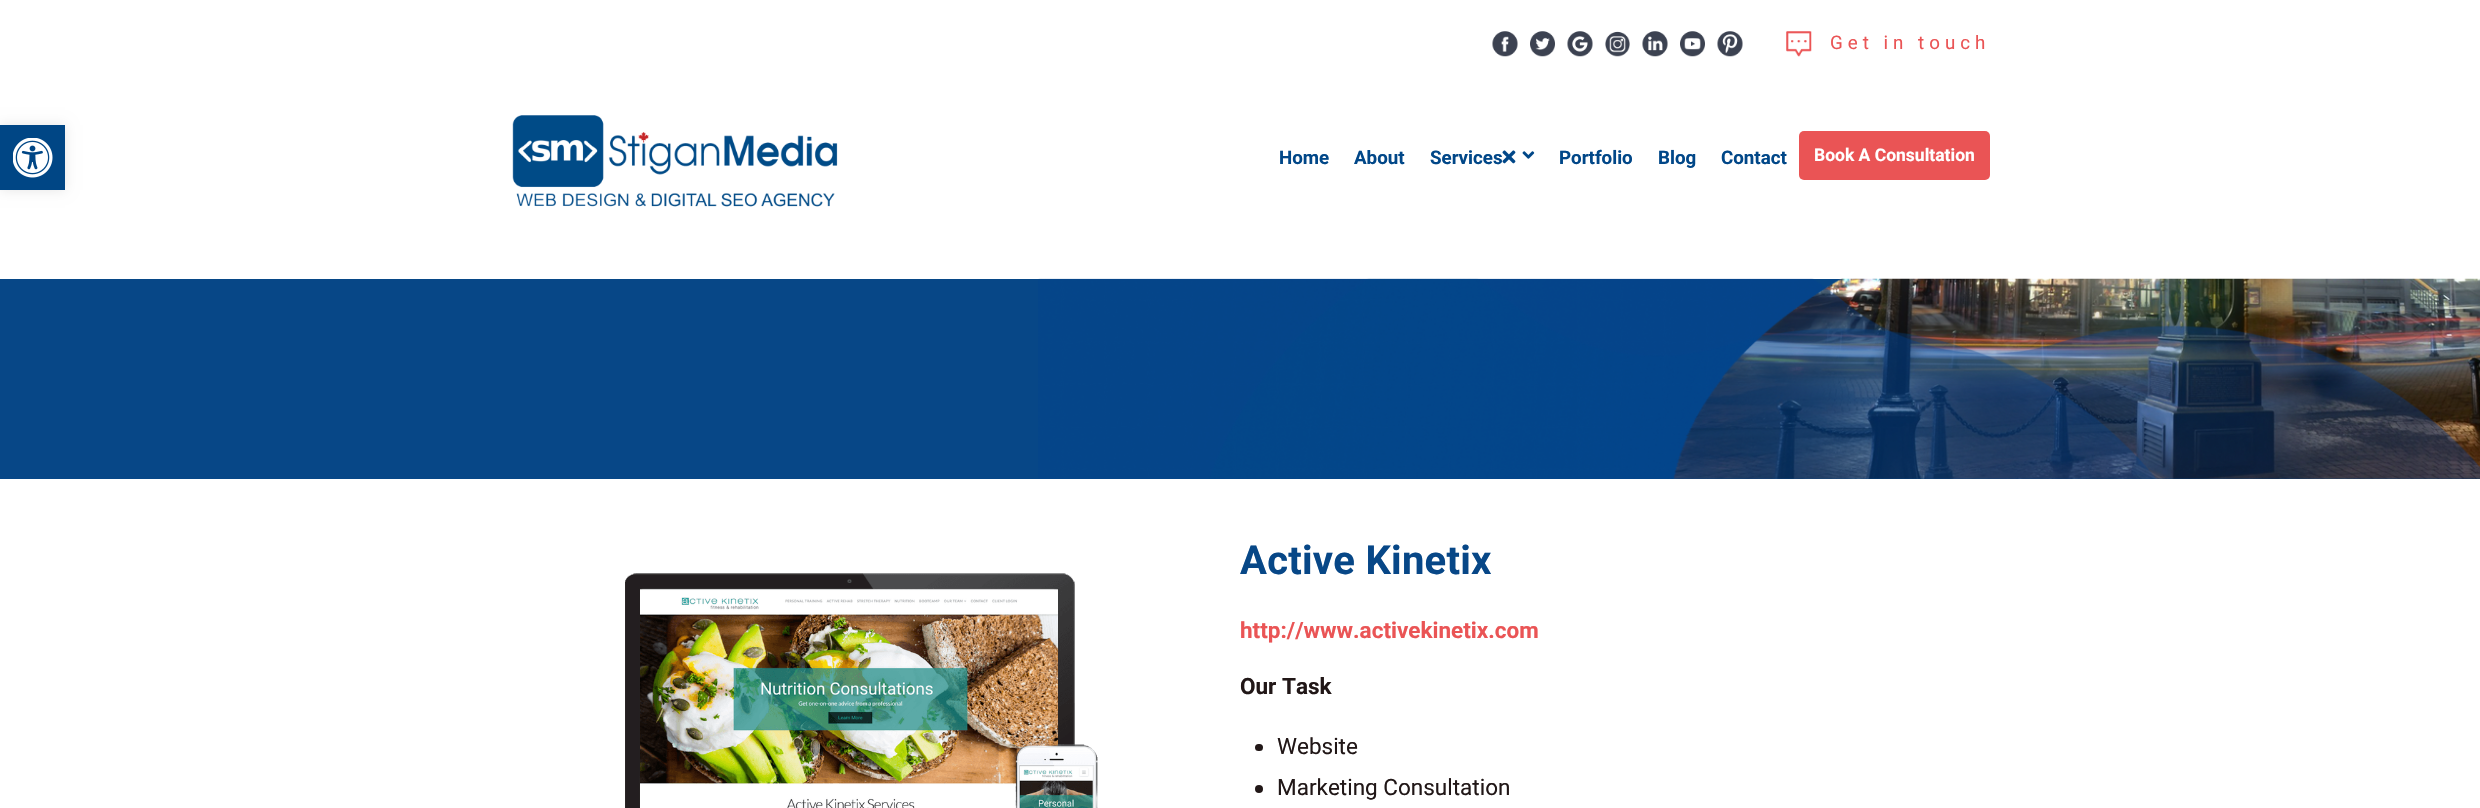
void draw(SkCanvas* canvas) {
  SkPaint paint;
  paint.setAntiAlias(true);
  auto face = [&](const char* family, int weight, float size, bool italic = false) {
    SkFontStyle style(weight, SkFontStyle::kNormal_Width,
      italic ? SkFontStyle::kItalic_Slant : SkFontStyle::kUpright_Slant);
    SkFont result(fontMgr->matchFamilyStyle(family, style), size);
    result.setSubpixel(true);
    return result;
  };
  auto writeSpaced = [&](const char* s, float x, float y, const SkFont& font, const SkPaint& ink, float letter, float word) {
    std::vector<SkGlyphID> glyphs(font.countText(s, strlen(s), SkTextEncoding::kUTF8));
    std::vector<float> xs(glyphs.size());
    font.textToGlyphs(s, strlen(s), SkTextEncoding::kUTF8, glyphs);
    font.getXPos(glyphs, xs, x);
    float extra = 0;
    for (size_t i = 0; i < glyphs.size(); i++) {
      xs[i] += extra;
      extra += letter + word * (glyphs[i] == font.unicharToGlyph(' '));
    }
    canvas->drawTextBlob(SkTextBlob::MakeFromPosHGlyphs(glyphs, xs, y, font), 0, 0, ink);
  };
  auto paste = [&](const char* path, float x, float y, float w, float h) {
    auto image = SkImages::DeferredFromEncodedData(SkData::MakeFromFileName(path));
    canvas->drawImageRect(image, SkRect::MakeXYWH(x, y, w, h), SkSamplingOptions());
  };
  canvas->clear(0xffffffff);
  paint.setColor(0x1a000000);
  paint.setMaskFilter(SkMaskFilter::MakeBlur(kNormal_SkBlurStyle, 6));
  canvas->drawRect(SkRect::MakeXYWH(0, 125, 65, 65), paint);
  paint.setMaskFilter(nullptr);
  paint.setColor(0xff004685);
  canvas->drawRect(SkRect::MakeXYWH(0, 125, 65, 65), paint);
  paste("img/1.png", 13, 138, 40, 40);
  paste("img/2.png", 1492, 31, 26, 26);
  paste("img/3.png", 1530, 31, 25, 26);
  paste("img/4.png", 1567, 31, 26, 26);
  paste("img/5.png", 1605, 31, 25, 26);
  paste("img/6.png", 1642, 31, 26, 26);
  paste("img/7.png", 1680, 31, 25, 26);
  paste("img/8.png", 1717, 31, 26, 26);
  paste("img/9.png", 1786, 31, 26, 26);
  paste("img/10.png", 512, 115, 326, 92);
  paste("img/11.png", 1502, 150, 14, 14);
  paste("img/12.png", 1522, 151, 13, 8);
  paint.setColor(0xffea5455);
  canvas->drawRoundRect(SkRect::MakeXYWH(1799, 131, 191, 49), 5, 5, paint);
  paint.setColor(0xff074787);
  canvas->drawRect(SkRect::MakeXYWH(0, 279, 2480, 200), paint);
  paste("img/13.png", 1038, 278, 1442, 201);
  paste("img/14.png", 625, 573, 473, 235);
  paint.setColor(0xff211717);
  canvas->drawRoundRect(SkRect::MakeXYWH(1255, 744, 8, 7), 3.5f, 3.5f, paint);
  canvas->drawCircle(1259, 789, 4, paint);
  auto f0 = face("Roboto", 400, 18.75f);
  paint.setColor(0xffea5455);
  writeSpaced("Get in touch", 1830, 49, f0, paint, 5, 0);
  auto f1 = face("Roboto", 700, 18.75f);
  paint.setColor(0xff014788);
  {
    const struct { const char* s; float x, y; } items[] = {
      {"Home", 1279, 164},
      {"About", 1354, 164},
      {"Services", 1430, 164},
      {"Portfolio", 1559, 164},
      {"Blog", 1658, 164},
      {"Contact", 1721, 164},
    };
    for (auto [s, x, y] : items) {
      canvas->drawString(s, x, y, f1, paint);
    }
  }
  auto f2 = face("Roboto", 700, 17.5f);
  paint.setColor(0xffffffff);
  canvas->drawString("Book A Consultation", 1814, 161, f2, paint);
  auto f3 = face("Roboto", 700, 40);
  paint.setColor(0xff074787);
  writeSpaced("Active Kinetix", 1240, 574, f3, paint, 0.25f, 0);
  auto f4 = face("Roboto", 700, 22.5f);
  paint.setColor(0xffea5455);
  canvas->drawString("http://www.activekinetix.com", 1240, 638, f4, paint);
  paint.setColor(0xff211717);
  canvas->drawString("Our Task", 1240, 694, f4, paint);
  auto f5 = face("Roboto", 400, 22.5f);
  canvas->drawString("Website", 1277, 754, f5, paint);
  canvas->drawString("Marketing Consultation", 1277, 795, f5, paint);
}
